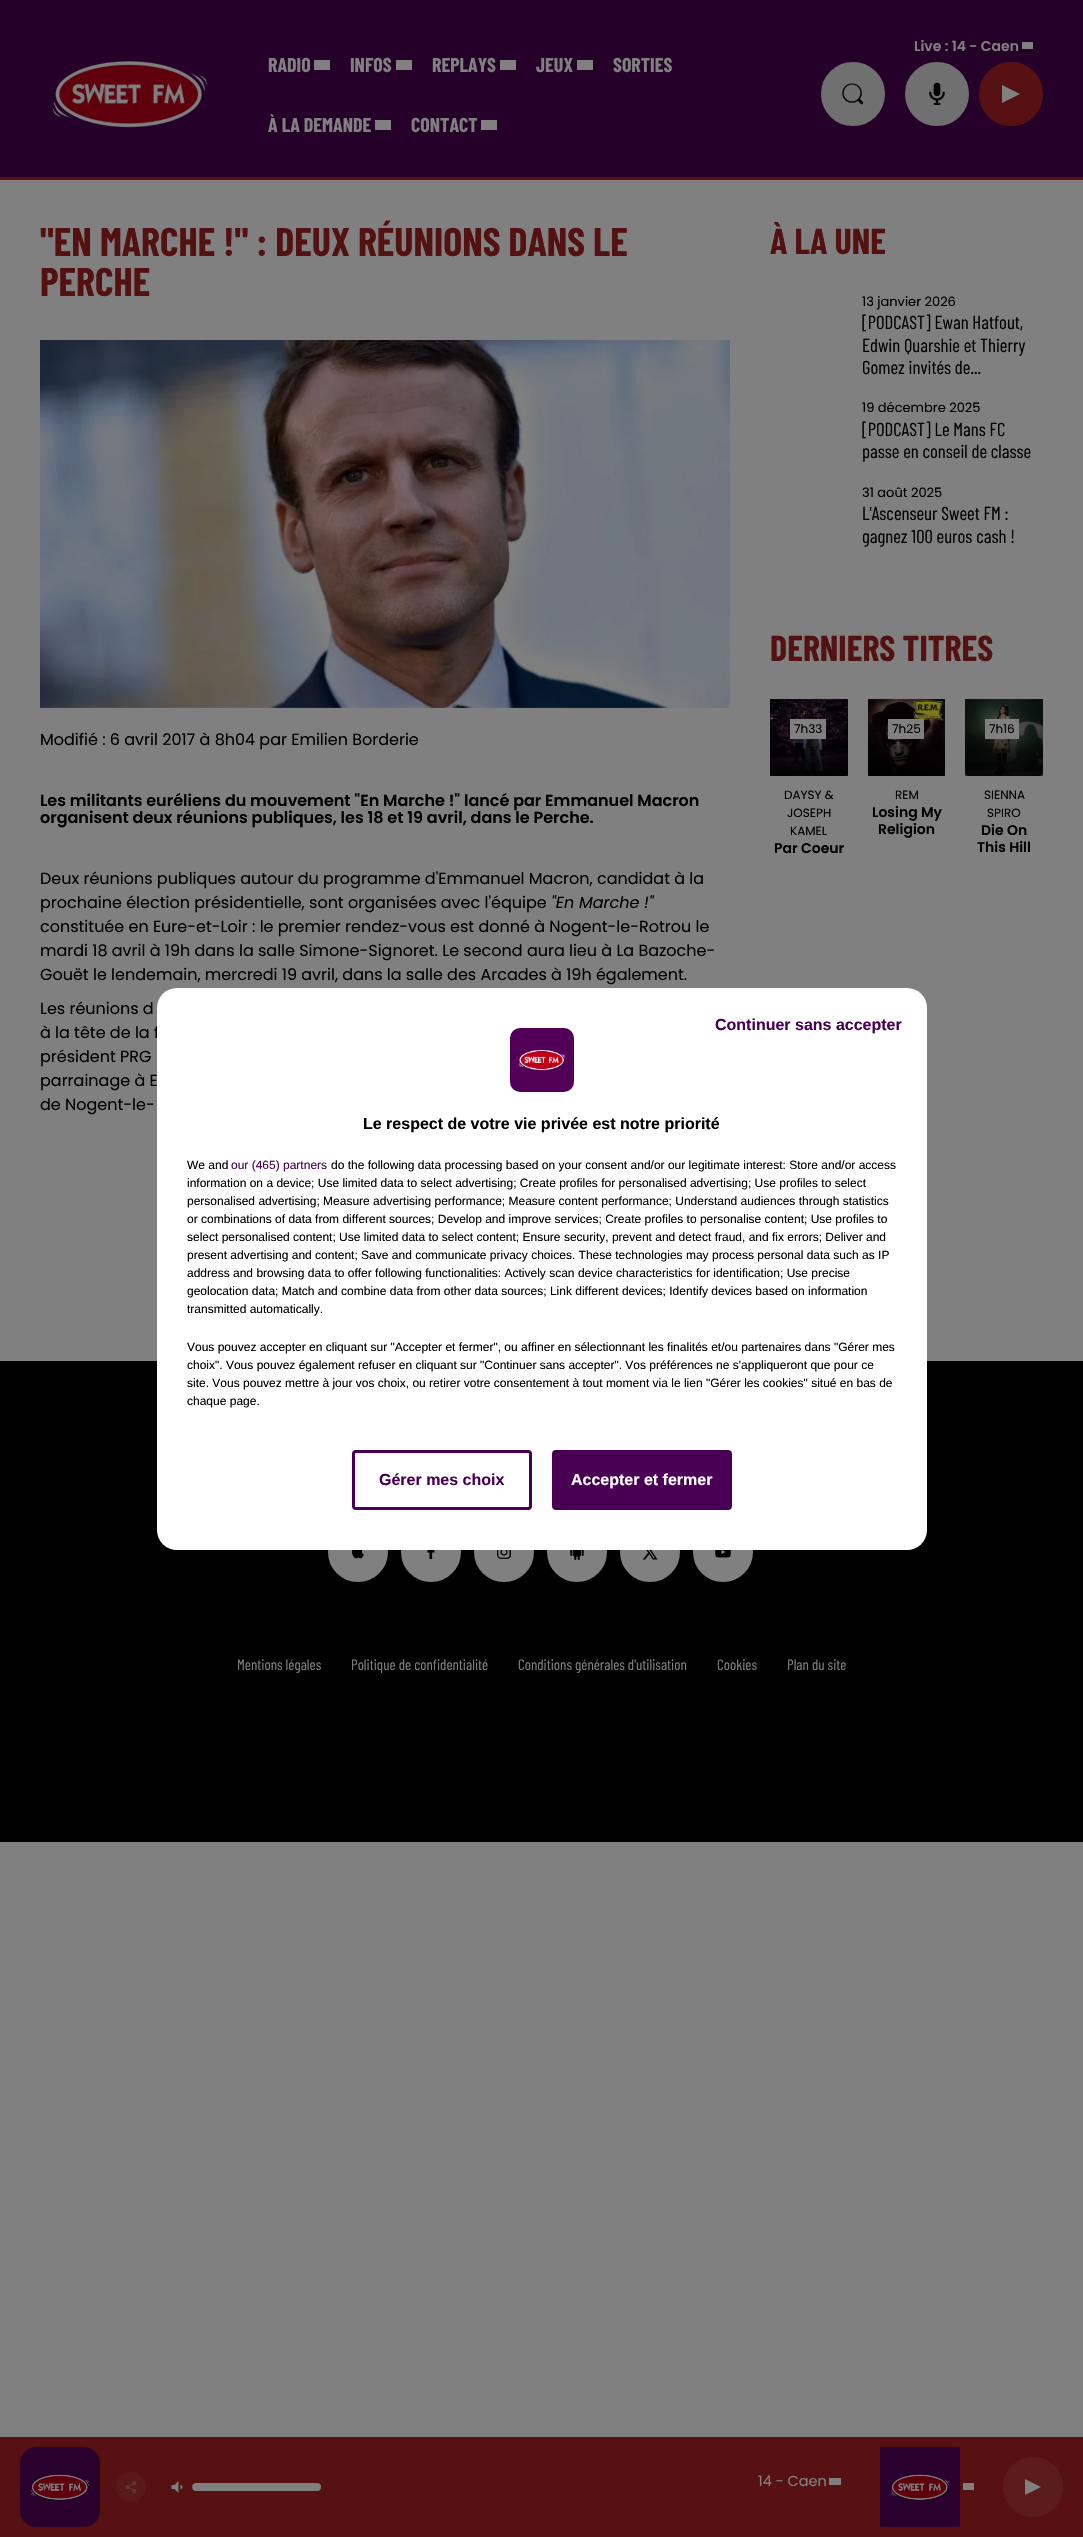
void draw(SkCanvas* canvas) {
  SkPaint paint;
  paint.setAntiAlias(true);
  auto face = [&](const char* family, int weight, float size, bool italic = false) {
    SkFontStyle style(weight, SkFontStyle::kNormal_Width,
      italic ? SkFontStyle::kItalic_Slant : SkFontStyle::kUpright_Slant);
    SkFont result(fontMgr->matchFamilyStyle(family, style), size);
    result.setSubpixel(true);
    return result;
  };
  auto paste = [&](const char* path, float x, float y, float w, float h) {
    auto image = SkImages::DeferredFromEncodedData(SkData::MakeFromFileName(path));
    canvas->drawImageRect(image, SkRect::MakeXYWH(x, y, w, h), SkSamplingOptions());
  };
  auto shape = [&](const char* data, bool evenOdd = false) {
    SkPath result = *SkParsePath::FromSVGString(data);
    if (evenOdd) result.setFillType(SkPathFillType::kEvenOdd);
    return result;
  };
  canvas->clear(0xff808080);
  {
    const struct { float x, y, w, h; SkColor color; } items[] = {
      {0, 0, 1083, 177, 0xff25012a},
      {0, 177, 1083, 3, 0xff571112},
      {1022, 42, 11, 7, 0xff808080},
    };
    for (auto [x, y, w, h, color] : items) {
      paint.setColor(color);
      canvas->drawRect(SkRect::MakeXYWH(x, y, w, h), paint);
    }
  }
  paint.setColor(0xff707070);
  canvas->drawCircle(937, 94, 31, paint);
  paint.setStroke(true);
  paint.setStrokeWidth(2);
  canvas->drawCircle(937, 94, 31, paint);
  paste("img/1.png", 929, 82, 16, 23);
  paint.setStroke(false);
  paint.setColor(0xff571112);
  canvas->drawCircle(1011, 94, 31, paint);
  paint.setStroke(true);
  canvas->drawCircle(1011, 94, 31, paint);
  paint.setStroke(false);
  paint.setColor(0xff808080);
  canvas->drawPath(shape("M1020 94L1002 103V85Z"), paint);
  paste("img/2.png", 52, 61, 156, 67);
  {
    const struct { float x, y, w, h; SkColor color; } items[] = {
      {314, 60, 16, 10, 0xff808080},
      {396, 60, 16, 10, 0xff808080},
      {500, 60, 16, 10, 0xff808080},
      {577, 60, 16, 10, 0xff808080},
      {375, 120, 16, 10, 0xff808080},
      {481, 120, 16, 10, 0xff808080},
    };
    for (auto [x, y, w, h, color] : items) {
      paint.setColor(color);
      canvas->drawRect(SkRect::MakeXYWH(x, y, w, h), paint);
    }
  }
  paint.setColor(0xff707070);
  canvas->drawCircle(853, 94, 31, paint);
  paint.setStroke(true);
  canvas->drawCircle(853, 94, 31, paint);
  paste("img/3.png", 842, 83, 22, 22);
  paste("img/4.png", 40, 340, 690, 368);
  paste("img/5.png", 770, 699, 78, 77);
  paint.setStroke(false);
  {
    const SkColor colors[] = {0x00000000, 0x00000000, 0x57000000, 0xa6000000};
    const float stops[] = {0, 0.4f, 0.65f, 1};
    const SkPoint ends[] = {{809, 699}, {809, 776}};
    paint.setShader(SkGradientShader::MakeLinear(ends, colors, stops, 4, SkTileMode::kClamp));
    paint.setAlpha(255);
  }
  canvas->drawRoundRect(SkRect::MakeXYWH(770, 699, 78, 77), 4, 4, paint);
  paint.setShader(nullptr);
  paint.setColor(0xff808080);
  canvas->drawRect(SkRect::MakeXYWH(790, 719, 36, 20), paint);
  paste("img/6.png", 868, 699, 77, 77);
  {
    const SkColor colors[] = {0x00000000, 0x00000000, 0x57000000, 0xa6000000};
    const float stops[] = {0, 0.4f, 0.65f, 1};
    const SkPoint ends[] = {{907, 699}, {907, 776}};
    paint.setShader(SkGradientShader::MakeLinear(ends, colors, stops, 4, SkTileMode::kClamp));
    paint.setAlpha(255);
  }
  canvas->drawRoundRect(SkRect::MakeXYWH(868, 699, 77, 77), 4, 4, paint);
  paint.setShader(nullptr);
  paint.setColor(0xff808080);
  canvas->drawRect(SkRect::MakeXYWH(888, 719, 36, 20), paint);
  paste("img/7.png", 965, 699, 78, 77);
  {
    const SkColor colors[] = {0x00000000, 0x00000000, 0x57000000, 0xa6000000};
    const float stops[] = {0, 0.4f, 0.65f, 1};
    const SkPoint ends[] = {{1004, 699}, {1004, 776}};
    paint.setShader(SkGradientShader::MakeLinear(ends, colors, stops, 4, SkTileMode::kClamp));
    paint.setAlpha(255);
  }
  canvas->drawRoundRect(SkRect::MakeXYWH(965, 699, 78, 77), 4, 4, paint);
  paint.setShader(nullptr);
  paint.setColor(0xff808080);
  canvas->drawRect(SkRect::MakeXYWH(985, 719, 34, 20), paint);
  paint.setColor(0xff000000);
  canvas->drawRect(SkRect::MakeXYWH(0, 1361, 1083, 481), paint);
  paint.setColor(0xff808080);
  canvas->drawCircle(358, 1552, 29, paint);
  paint.setStroke(true);
  canvas->drawCircle(358, 1552, 29, paint);
  paste("img/8.png", 352, 1550, 12, 9);
  paint.setStroke(false);
  canvas->drawCircle(431, 1552, 29, paint);
  paint.setStroke(true);
  canvas->drawCircle(431, 1552, 29, paint);
  paste("img/9.png", 427, 1550, 8, 9);
  paint.setStroke(false);
  canvas->drawCircle(504, 1552, 29, paint);
  paint.setStroke(true);
  canvas->drawCircle(504, 1552, 29, paint);
  paste("img/10.png", 497, 1550, 14, 9);
  paint.setStroke(false);
  canvas->drawCircle(577, 1552, 29, paint);
  paint.setStroke(true);
  canvas->drawCircle(577, 1552, 29, paint);
  paste("img/11.png", 570, 1550, 14, 10);
  paint.setStroke(false);
  canvas->drawCircle(650, 1552, 29, paint);
  paint.setStroke(true);
  canvas->drawCircle(650, 1552, 29, paint);
  paste("img/12.png", 642, 1550, 16, 10);
  paint.setStroke(false);
  canvas->drawCircle(723, 1552, 29, paint);
  paint.setStroke(true);
  canvas->drawCircle(723, 1552, 29, paint);
  paste("img/13.png", 715, 1550, 16, 8);
  paint.setStroke(false);
  paint.setColor(0xff571112);
  canvas->drawRect(SkRect::MakeXYWH(0, 2437, 1083, 100), paint);
  paste("img/14.png", 20, 2447, 80, 80);
  paint.setColor(0xff591819);
  canvas->drawCircle(131, 2487, 15, paint);
  paste("img/15.png", 125, 2481, 12, 12);
  paste("img/16.png", 171, 2481, 12, 12);
  paint.setColor(0xff5f2728);
  canvas->drawRoundRect(SkRect::MakeXYWH(192, 2483, 129, 8), 4, 4, paint);
  paint.setColor(0xff808080);
  canvas->drawPath(shape("M196 2483C191 2483 191 2491 196 2491H317C312 2491 312 2483 317 2483Z"), paint);
  canvas->drawCircle(317, 2487, 4, paint);
  canvas->drawRect(SkRect::MakeXYWH(829, 2478, 12, 7), paint);
  paste("img/17.png", 879, 2447, 81, 80);
  canvas->drawRect(SkRect::MakeXYWH(963, 2483, 11, 7), paint);
  paint.setColor(0xff5b1c1d);
  canvas->drawCircle(1033, 2487, 30, paint);
  paint.setColor(0xff808080);
  canvas->drawPath(shape("M1041 2487L1025 2495V2479Z"), paint);
  auto f0 = face("Poppins", 600, 14);
  canvas->drawString("Live : 14 - Caen", 914, 51, f0, paint);
  auto f1 = face("Barlow Condensed", 700, 20);
  {
    const struct { const char* s; float x, y; } items[] = {
      {"RADIO", 268, 72},
      {"INFOS", 350, 72},
      {"REPLAYS", 432, 72},
      {"JEUX", 536, 72},
      {"SORTIES", 613, 72},
      {"À LA DEMANDE", 268, 132},
      {"CONTACT", 411, 132},
    };
    for (auto [s, x, y] : items) {
      canvas->drawString(s, x, y, f1, paint);
    }
  }
  auto f2 = face("Barlow Condensed", 700, 40);
  paint.setColor(0xff531112);
  canvas->drawString("\"EN MARCHE !\" : DEUX RÉUNIONS DANS LE", 40, 256, f2, paint);
  canvas->drawString("PERCHE", 40, 296, f2, paint);
  auto f3 = face("Poppins", 400, 16);
  paint.setColor(0xff000000);
  canvas->drawString("Modifié : 6 avril 2017 à 8h04 par Emilien Borderie", 40, 745, f3, paint);
  auto f4 = face("Poppins", 600, 16);
  canvas->drawString("Les militants euréliens du mouvement \"En Marche !\" lancé par Emmanuel Macron", 40, 806, f4, paint);
  canvas->drawString("organisent deux réunions publiques, les 18 et 19 avril, dans le Perche.", 40, 823, f4, paint);
  canvas->drawString("Deux réunions publiques autour du programme d'Emmanuel Macron, candidat à la", 40, 884, f3, paint);
  canvas->drawString("prochaine élection présidentielle, sont organisées avec l'équipe", 40, 908, f3, paint);
  auto f5 = face("Poppins", 400, 16, true);
  canvas->drawString("\"En Marche !\"", 551, 908, f5, paint);
  {
    const struct { const char* s; float x, y; } items[] = {
      {"constituée en Eure-et-Loir : le premier rendez-vous est donné à Nogent-le-Rotrou le", 40, 932},
      {"mardi 18 avril à 19h dans la salle Simone-Signoret. Le second aura lieu à La Bazoche-", 40, 956},
      {"Gouët le lendemain, mercredi 19 avril, dans la salle des Arcades à 19h également.", 40, 980},
      {"Les réunions d", 40, 1014},
      {"à la tête de la f", 40, 1038},
      {"président PRG", 40, 1062},
      {"parrainage à E", 40, 1086},
      {"de Nogent-le-", 40, 1110},
    };
    for (auto [s, x, y] : items) {
      canvas->drawString(s, x, y, f3, paint);
    }
  }
  auto f6 = face("Barlow Condensed", 700, 36);
  paint.setColor(0xff531112);
  canvas->drawString("À LA UNE", 770, 254, f6, paint);
  auto f7 = face("Poppins", 400, 13);
  paint.setColor(0xff000000);
  canvas->drawString("13 janvier 2026", 862, 306, f7, paint);
  auto f8 = face("Barlow Condensed", 400, 18.75f);
  {
    const struct { const char* s; float x, y; } items[] = {
      {"[PODCAST] Ewan Hatfout,", 862, 329},
      {"Edwin Quarshie et Thierry", 862, 352},
      {"Gomez invités de...", 862, 374},
    };
    for (auto [s, x, y] : items) {
      canvas->drawString(s, x, y, f8, paint);
    }
  }
  canvas->drawString("19 décembre 2025", 862, 412, f7, paint);
  canvas->drawString("[PODCAST] Le Mans FC", 862, 436, f8, paint);
  canvas->drawString("passe en conseil de classe", 862, 458, f8, paint);
  canvas->drawString("31 août 2025", 862, 497, f7, paint);
  canvas->drawString("L'Ascenseur Sweet FM :", 862, 520, f8, paint);
  canvas->drawString("gagnez 100 euros cash !", 862, 543, f8, paint);
  paint.setColor(0xff531112);
  canvas->drawString("DERNIERS TITRES", 770, 661, f6, paint);
  auto f9 = face("Poppins", 400, 12);
  paint.setColor(0xff000000);
  {
    const struct { const char* s; float x, y; } items[] = {
      {"7h33", 794, 733},
      {"DAYSY &", 784, 799},
      {"JOSEPH", 787, 817},
      {"KAMEL", 790, 835},
    };
    for (auto [s, x, y] : items) {
      canvas->drawString(s, x, y, f9, paint);
    }
  }
  canvas->drawString("Par Coeur", 774, 853, f0, paint);
  canvas->drawString("7h25", 892, 733, f9, paint);
  canvas->drawString("REM", 895, 799, f9, paint);
  canvas->drawString("Losing My", 872, 817, f0, paint);
  canvas->drawString("Religion", 878, 834, f0, paint);
  {
    const struct { const char* s; float x, y; } items[] = {
      {"7h16", 989, 733},
      {"SIENNA", 984, 799},
      {"SPIRO", 987, 817},
    };
    for (auto [s, x, y] : items) {
      canvas->drawString(s, x, y, f9, paint);
    }
  }
  canvas->drawString("Die On", 981, 835, f0, paint);
  canvas->drawString("This Hill", 977, 852, f0, paint);
  auto f10 = face("Barlow Condensed", 400, 15);
  paint.setColor(0xff808080);
  {
    const struct { const char* s; float x, y; } items[] = {
      {"Mentions légales", 237, 1670},
      {"Politique de confidentialité", 351, 1670},
      {"Conditions générales d'utilisation", 518, 1670},
      {"Cookies", 717, 1670},
      {"Plan du site", 787, 1670},
    };
    for (auto [s, x, y] : items) {
      canvas->drawString(s, x, y, f10, paint);
    }
  }
  auto f11 = face("Poppins", 400, 14.5f);
  canvas->drawString("14 - Caen", 758, 2486, f11, paint);
  paint.setColor(0xffffffff);
  canvas->drawRoundRect(SkRect::MakeXYWH(157, 988, 770, 562), 20, 20, paint);
  auto f12 = face("Liberation Sans", 700, 16);
  paint.setColor(0xff490054);
  canvas->drawString("Continuer sans accepter", 715, 1030, f12, paint);
  paint.setStroke(true);
  paint.setStrokeWidth(3);
  canvas->drawRoundRect(SkRect::MakeXYWH(353.5f, 1451.5f, 177, 57), 2.5f, 2.5f, paint);
  paint.setStroke(false);
  canvas->drawString("Gérer mes choix", 379, 1485, f12, paint);
  canvas->drawRoundRect(SkRect::MakeXYWH(553.5f, 1451.5f, 177, 57), 2.5f, 2.5f, paint);
  paint.setStroke(true);
  canvas->drawRoundRect(SkRect::MakeXYWH(553.5f, 1451.5f, 177, 57), 2.5f, 2.5f, paint);
  paint.setStroke(false);
  paint.setColor(0xffffffff);
  canvas->drawString("Accepter et fermer", 571, 1485, f12, paint);
  paste("img/18.png", 510, 1028, 64, 64);
  paint.setColor(0xff000000);
  canvas->drawString("Le respect de votre vie privée est notre priorité", 363, 1129, f12, paint);
  auto f13 = face("Liberation Sans", 400, 12);
  canvas->drawString("We and", 187, 1169, f13, paint);
  paint.setColor(0xff490054);
  canvas->drawString("our (465) partners", 231, 1169, f13, paint);
  paint.setColor(0xff000000);
  {
    const struct { const char* s; float x, y; } items[] = {
      {"do the following data processing based on your consent and/or our legitimate interest: Store and/or access", 331, 1169},
      {"information on a device; Use limited data to select advertising; Create profiles for personalised advertising; Use profiles to select", 187, 1187},
      {"personalised advertising; Measure advertising performance; Measure content performance; Understand audiences through statistics", 187, 1205},
      {"or combinations of data from different sources; Develop and improve services; Create profiles to personalise content; Use profiles to", 187, 1223},
      {"select personalised content; Use limited data to select content; Ensure security, prevent and detect fraud, and fix errors; Deliver and", 187, 1241},
      {"present advertising and content; Save and communicate privacy choices. These technologies may process personal data such as IP", 187, 1259},
      {"address and browsing data to offer following functionalities: Actively scan device characteristics for identification; Use precise", 187, 1277},
      {"geolocation data; Match and combine data from other data sources; Link different devices; Identify devices based on information", 187, 1295},
      {"transmitted automatically.", 187, 1313},
      {"Vous pouvez accepter en cliquant sur \"Accepter et fermer\", ou affiner en sélectionnant les finalités et/ou partenaires dans \"Gérer mes", 187, 1351},
      {"choix\". Vous pouvez également refuser en cliquant sur \"Continuer sans accepter\". Vos préférences ne s'appliqueront que pour ce", 187, 1369},
      {"site. Vous pouvez mettre à jour vos choix, ou retirer votre consentement à tout moment via le lien \"Gérer les cookies\" situé en bas de", 187, 1387},
      {"chaque page.", 187, 1405},
    };
    for (auto [s, x, y] : items) {
      canvas->drawString(s, x, y, f13, paint);
    }
  }
}
